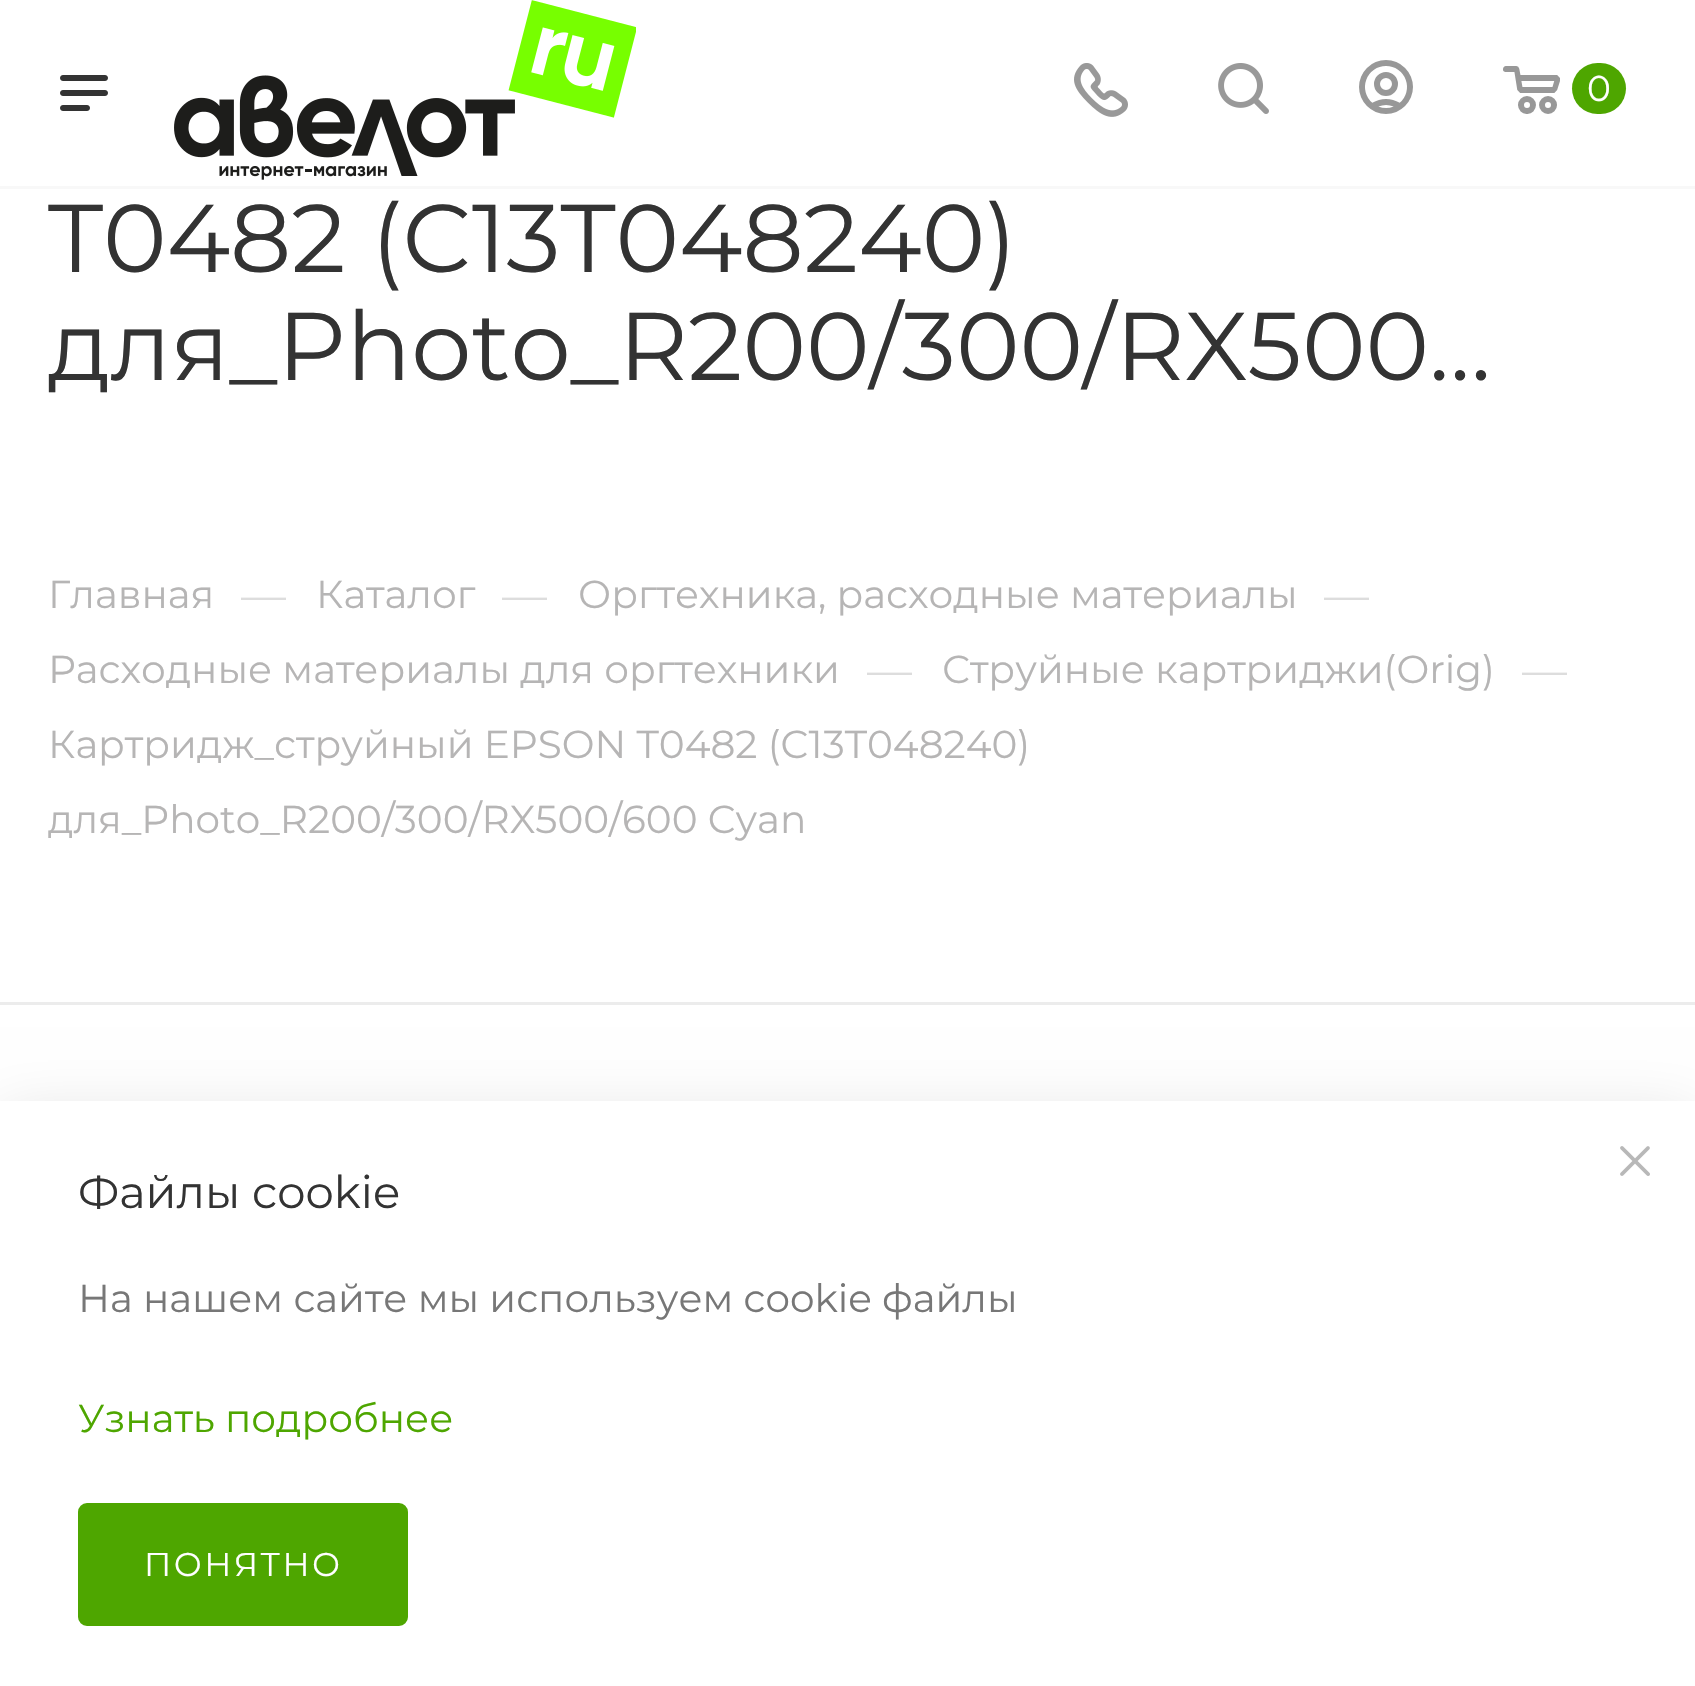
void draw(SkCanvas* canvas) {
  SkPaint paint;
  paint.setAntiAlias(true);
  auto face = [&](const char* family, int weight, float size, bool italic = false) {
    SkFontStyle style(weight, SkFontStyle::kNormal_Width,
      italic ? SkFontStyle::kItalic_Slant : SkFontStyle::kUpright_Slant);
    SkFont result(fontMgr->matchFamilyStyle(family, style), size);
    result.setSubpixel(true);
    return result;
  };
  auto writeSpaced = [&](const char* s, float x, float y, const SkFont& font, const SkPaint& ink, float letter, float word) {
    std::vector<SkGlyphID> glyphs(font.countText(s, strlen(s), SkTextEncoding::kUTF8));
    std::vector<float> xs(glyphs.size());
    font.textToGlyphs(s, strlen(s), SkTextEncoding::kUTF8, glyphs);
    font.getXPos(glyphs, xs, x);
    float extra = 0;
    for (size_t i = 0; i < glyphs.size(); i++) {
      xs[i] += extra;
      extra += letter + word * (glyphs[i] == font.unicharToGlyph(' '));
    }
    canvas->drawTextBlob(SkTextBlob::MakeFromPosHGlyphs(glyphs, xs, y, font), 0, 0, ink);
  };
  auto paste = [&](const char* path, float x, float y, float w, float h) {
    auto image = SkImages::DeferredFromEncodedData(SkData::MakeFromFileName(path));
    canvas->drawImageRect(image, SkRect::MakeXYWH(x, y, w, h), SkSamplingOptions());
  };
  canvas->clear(0xffffffff);
  paint.setColor(0xfff8f8f8);
  canvas->drawRect(SkRect::MakeXYWH(0, 186, 1695, 3), paint);
  paste("img/1.png", 60, 75, 48, 36);
  paste("img/2.png", 174, 0, 462, 180);
  paste("img/3.png", 1074, 63, 54, 54);
  paste("img/4.png", 1218, 63, 51, 51);
  paste("img/5.png", 1359, 60, 54, 54);
  paste("img/6.png", 1503, 66, 57, 48);
  paint.setColor(0xff4ea600);
  canvas->drawRoundRect(SkRect::MakeXYWH(1572, 63, 54, 51), 25.5f, 25.5f, paint);
  paint.setColor(0xffececec);
  canvas->drawRect(SkRect::MakeXYWH(0, 1002, 1695, 3), paint);
  paint.setColor(0x1f000000);
  paint.setMaskFilter(SkMaskFilter::MakeBlur(kNormal_SkBlurStyle, 30));
  canvas->drawRect(SkRect::MakeXYWH(0, 1116, 1695, 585), paint);
  paint.setMaskFilter(nullptr);
  paint.setColor(0xffffffff);
  canvas->drawRect(SkRect::MakeXYWH(0, 1101, 1695, 585), paint);
  paste("img/7.png", 1620, 1146, 30, 30);
  paint.setColor(0xff4ea600);
  canvas->drawRoundRect(SkRect::MakeXYWH(79.5f, 1504.5f, 327, 120), 7.5f, 7.5f, paint);
  paint.setStroke(true);
  paint.setStrokeWidth(3);
  canvas->drawRoundRect(SkRect::MakeXYWH(79.5f, 1504.5f, 327, 120), 7.5f, 7.5f, paint);
  auto f0 = face("Montserrat", 400, 36);
  paint.setStroke(false);
  paint.setColor(0xffffffff);
  canvas->drawString("0", 1587, 101, f0, paint);
  auto f1 = face("Montserrat", 400, 96);
  paint.setColor(0xff333333);
  canvas->drawString("T0482 (C13T048240)", 48, 272, f1, paint);
  canvas->drawString("для_Photo_R200/300/RX500…", 48, 380, f1, paint);
  auto f2 = face("Montserrat", 400, 39);
  paint.setColor(0xffb6b5b5);
  canvas->drawString("Главная", 48, 608, f2, paint);
  auto f3 = face("Montserrat", 400, 45);
  paint.setColor(0xffdddddd);
  canvas->drawString("—", 241, 611, f3, paint);
  paint.setColor(0xffb6b5b5);
  canvas->drawString("Каталог", 316, 608, f2, paint);
  paint.setColor(0xffdddddd);
  canvas->drawString("—", 502, 611, f3, paint);
  paint.setColor(0xffb6b5b5);
  canvas->drawString("Оргтехника, расходные материалы", 578, 608, f2, paint);
  paint.setColor(0xffdddddd);
  canvas->drawString("—", 1324, 611, f3, paint);
  paint.setColor(0xffb6b5b5);
  canvas->drawString("Расходные материалы для оргтехники", 48, 683, f2, paint);
  paint.setColor(0xffdddddd);
  canvas->drawString("—", 867, 686, f3, paint);
  paint.setColor(0xffb6b5b5);
  canvas->drawString("Струйные картриджи(Orig)", 942, 683, f2, paint);
  paint.setColor(0xffdddddd);
  canvas->drawString("—", 1522, 686, f3, paint);
  paint.setColor(0xffb6b5b5);
  canvas->drawString("Картридж_струйный EPSON T0482 (C13T048240)", 48, 758, f2, paint);
  canvas->drawString("для_Photo_R200/300/RX500/600 Cyan", 48, 833, f2, paint);
  paint.setColor(0xff333333);
  canvas->drawString("Файлы cookie", 78, 1208, f3, paint);
  paint.setColor(0xff777777);
  canvas->drawString("На нашем сайте мы используем cookie файлы", 78, 1312, f2, paint);
  paint.setColor(0xff4ea600);
  canvas->drawString("Узнать подробнее", 78, 1432, f2, paint);
  auto f4 = face("Montserrat", 400, 33);
  paint.setColor(0xffffffff);
  writeSpaced("ПОНЯТНО", 144, 1576, f4, paint, 2.5f, 0);
}
